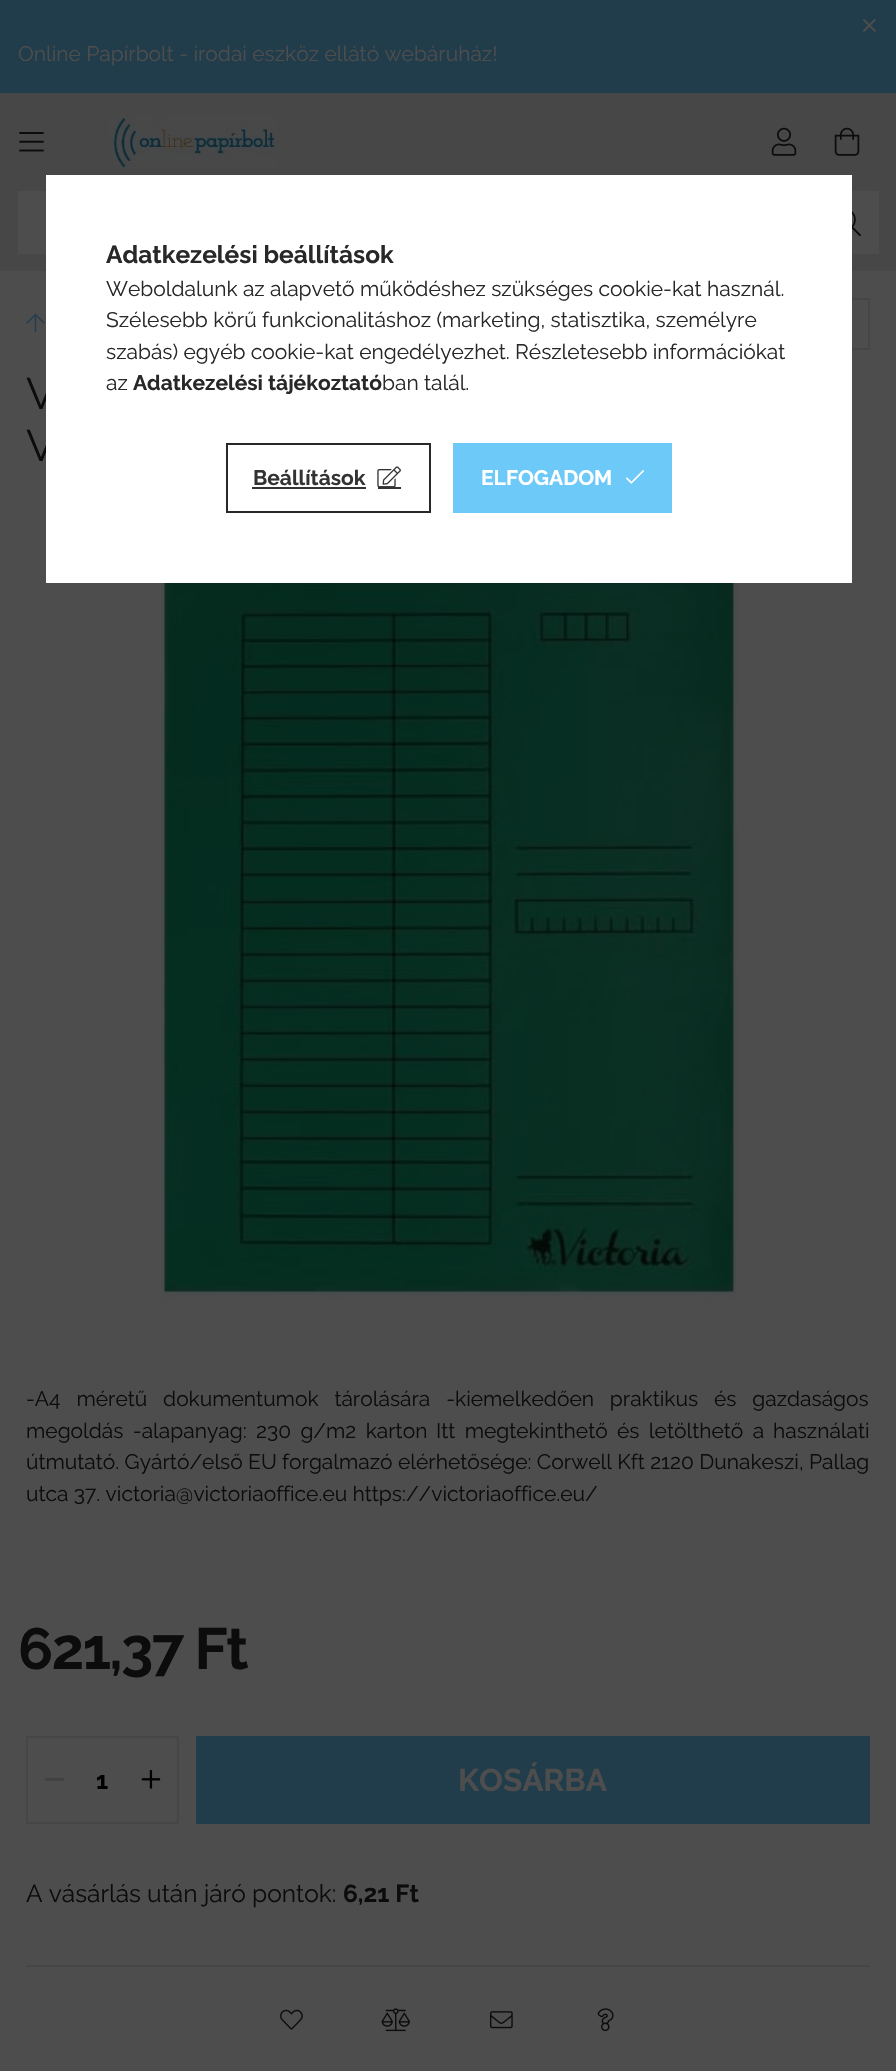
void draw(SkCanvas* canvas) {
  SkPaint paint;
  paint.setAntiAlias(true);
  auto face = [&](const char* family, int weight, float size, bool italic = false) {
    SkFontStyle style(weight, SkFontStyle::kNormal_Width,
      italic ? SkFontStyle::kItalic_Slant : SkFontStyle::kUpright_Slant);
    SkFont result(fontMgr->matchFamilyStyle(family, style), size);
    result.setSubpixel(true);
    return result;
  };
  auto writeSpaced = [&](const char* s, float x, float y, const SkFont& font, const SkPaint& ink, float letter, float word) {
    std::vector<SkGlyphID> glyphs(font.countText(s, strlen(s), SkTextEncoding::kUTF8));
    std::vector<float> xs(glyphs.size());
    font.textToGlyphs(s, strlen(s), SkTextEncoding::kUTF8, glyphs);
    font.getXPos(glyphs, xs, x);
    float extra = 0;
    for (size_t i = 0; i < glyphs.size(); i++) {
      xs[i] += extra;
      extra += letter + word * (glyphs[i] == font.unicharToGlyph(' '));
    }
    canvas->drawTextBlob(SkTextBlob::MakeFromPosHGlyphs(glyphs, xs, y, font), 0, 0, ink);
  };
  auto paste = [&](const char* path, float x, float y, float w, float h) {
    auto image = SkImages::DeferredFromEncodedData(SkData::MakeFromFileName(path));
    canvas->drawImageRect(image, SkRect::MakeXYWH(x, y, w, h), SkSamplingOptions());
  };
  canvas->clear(0xff4d4d4d);
  paint.setColor(0xff213c4a);
  canvas->drawRect(SkRect::MakeXYWH(0, 0, 896, 93), paint);
  paste("img/1.png", 862, 18, 14, 14);
  paint.setColor(0xff474747);
  canvas->drawRect(SkRect::MakeXYWH(0, 93, 896, 178), paint);
  paste("img/2.png", 19, 132, 25, 20);
  paste("img/3.png", 108, 115, 169, 53);
  paste("img/4.png", 771, 127, 26, 29);
  paste("img/5.png", 834, 127, 26, 29);
  paint.setColor(0xff4d4d4d);
  canvas->drawRect(SkRect::MakeXYWH(18, 191, 861, 63), paint);
  paste("img/6.png", 852, 211, 9, 26);
  paste("img/7.png", 26, 313, 19, 20);
  paint.setStroke(true);
  paint.setStrokeWidth(2);
  paint.setColor(0xff464646);
  canvas->drawRect(SkRect::MakeXYWH(818, 299, 51, 50), paint);
  paste("img/8.png", 161, 583, 576, 714);
  canvas->drawRect(SkRect::MakeXYWH(27, 1737, 151, 86), paint);
  paint.setStroke(false);
  paint.setColor(0xff424242);
  canvas->drawRect(SkRect::MakeXYWH(45, 1778, 19, 3), paint);
  paste("img/9.png", 141, 1770, 20, 19);
  paint.setColor(0xff213c4a);
  canvas->drawRect(SkRect::MakeXYWH(196, 1736, 674, 88), paint);
  paint.setColor(0xff464646);
  canvas->drawRect(SkRect::MakeXYWH(26, 1965, 844, 2), paint);
  paste("img/10.png", 280, 2009, 23, 21);
  paste("img/11.png", 381, 2008, 29, 24);
  paste("img/12.png", 490, 2011, 23, 18);
  paste("img/13.png", 597, 2008, 17, 24);
  auto f0 = face("Raleway", 400, 21);
  paint.setColor(0xff4d4d4d);
  canvas->drawString("Online Papírbolt - irodai eszköz ellátó webáruház!", 18, 61, f0, paint);
  auto f1 = face("Raleway", 400, 44);
  paint.setColor(0xff0c0c0c);
  canvas->drawString("V", 26, 409, f1, paint);
  canvas->drawString("V", 26, 461, f1, paint);
  writeSpaced("-A4 méretű dokumentumok tárolására -kiemelkedően praktikus és gazdaságos", 26, 1406, f0, paint, 0, 10.5f);
  writeSpaced("megoldás -alapanyag: 230 g/m2 karton", 26, 1438, f0, paint, 0, 4);
  writeSpaced("Itt megtekinthető és letölthető a", 436, 1438, f0, paint, 0, 4);
  {
    const struct { const char* s; float x, y; } items[] = {
      {"használati", 773, 1438},
      {"útmutató. Gyártó/első EU forgalmazó elérhetősége: Corwell Kft 2120 Dunakeszi, Pallag", 26, 1469},
      {"utca 37. victoria@victoriaoffice.eu https://victoriaoffice.eu/", 26, 1501},
    };
    for (auto [s, x, y] : items) {
      canvas->drawString(s, x, y, f0, paint);
    }
  }
  auto f2 = face("Raleway", 700, 58);
  writeSpaced("621,37 Ft", 18, 1669, f2, paint, -1.75f, 0);
  auto f3 = face("Raleway", 700, 24.5f);
  paint.setColor(0xff000000);
  canvas->drawString("1", 96, 1789, f3, paint);
  auto f4 = face("Raleway", 700, 31.5f);
  paint.setColor(0xff4d4d4d);
  canvas->drawString("KOSÁRBA", 458, 1791, f4, paint);
  auto f5 = face("Raleway", 400, 24.5f);
  paint.setColor(0xff0c0c0c);
  canvas->drawString("A vásárlás után járó pontok:", 26, 1902, f5, paint);
  canvas->drawString("6,21 Ft", 343, 1902, f3, paint);
  paint.setColor(0xffffffff);
  canvas->drawRect(SkRect::MakeXYWH(46, 175, 806, 408), paint);
  paint.setColor(0xff282828);
  canvas->drawString("Adatkezelési beállítások", 106, 263, f3, paint);
  {
    const struct { const char* s; float x, y; } items[] = {
      {"Weboldalunk az alapvető működéshez szükséges cookie-kat használ.", 106, 296},
      {"Szélesebb körű funkcionalitáshoz (marketing, statisztika, személyre", 106, 327},
      {"szabás) egyéb cookie-kat engedélyezhet. Részletesebb információkat", 106, 359},
      {"az", 106, 390},
    };
    for (auto [s, x, y] : items) {
      canvas->drawString(s, x, y, f0, paint);
    }
  }
  auto f6 = face("Raleway", 700, 21);
  canvas->drawString("Adatkezelési tájékoztató", 133, 390, f6, paint);
  canvas->drawString("ban talál.", 382, 390, f0, paint);
  paint.setStroke(true);
  canvas->drawRect(SkRect::MakeXYWH(227, 444, 203, 68), paint);
  paint.setStroke(false);
  paint.setColor(0xff333333);
  canvas->drawString("Beállítások", 253, 485, f6, paint);
  canvas->drawRect(SkRect::MakeXYWH(252, 487, 114, 2), paint);
  paste("img/14.png", 377, 466, 24, 21);
  canvas->drawRect(SkRect::MakeXYWH(378, 487, 23, 2), paint);
  paint.setColor(0xff6dc9f7);
  canvas->drawRect(SkRect::MakeXYWH(453, 443, 219, 70), paint);
  paint.setColor(0xffffffff);
  canvas->drawString("ELFOGADOM", 481, 485, f6, paint);
  paste("img/15.png", 626, 470, 19, 14);
}
